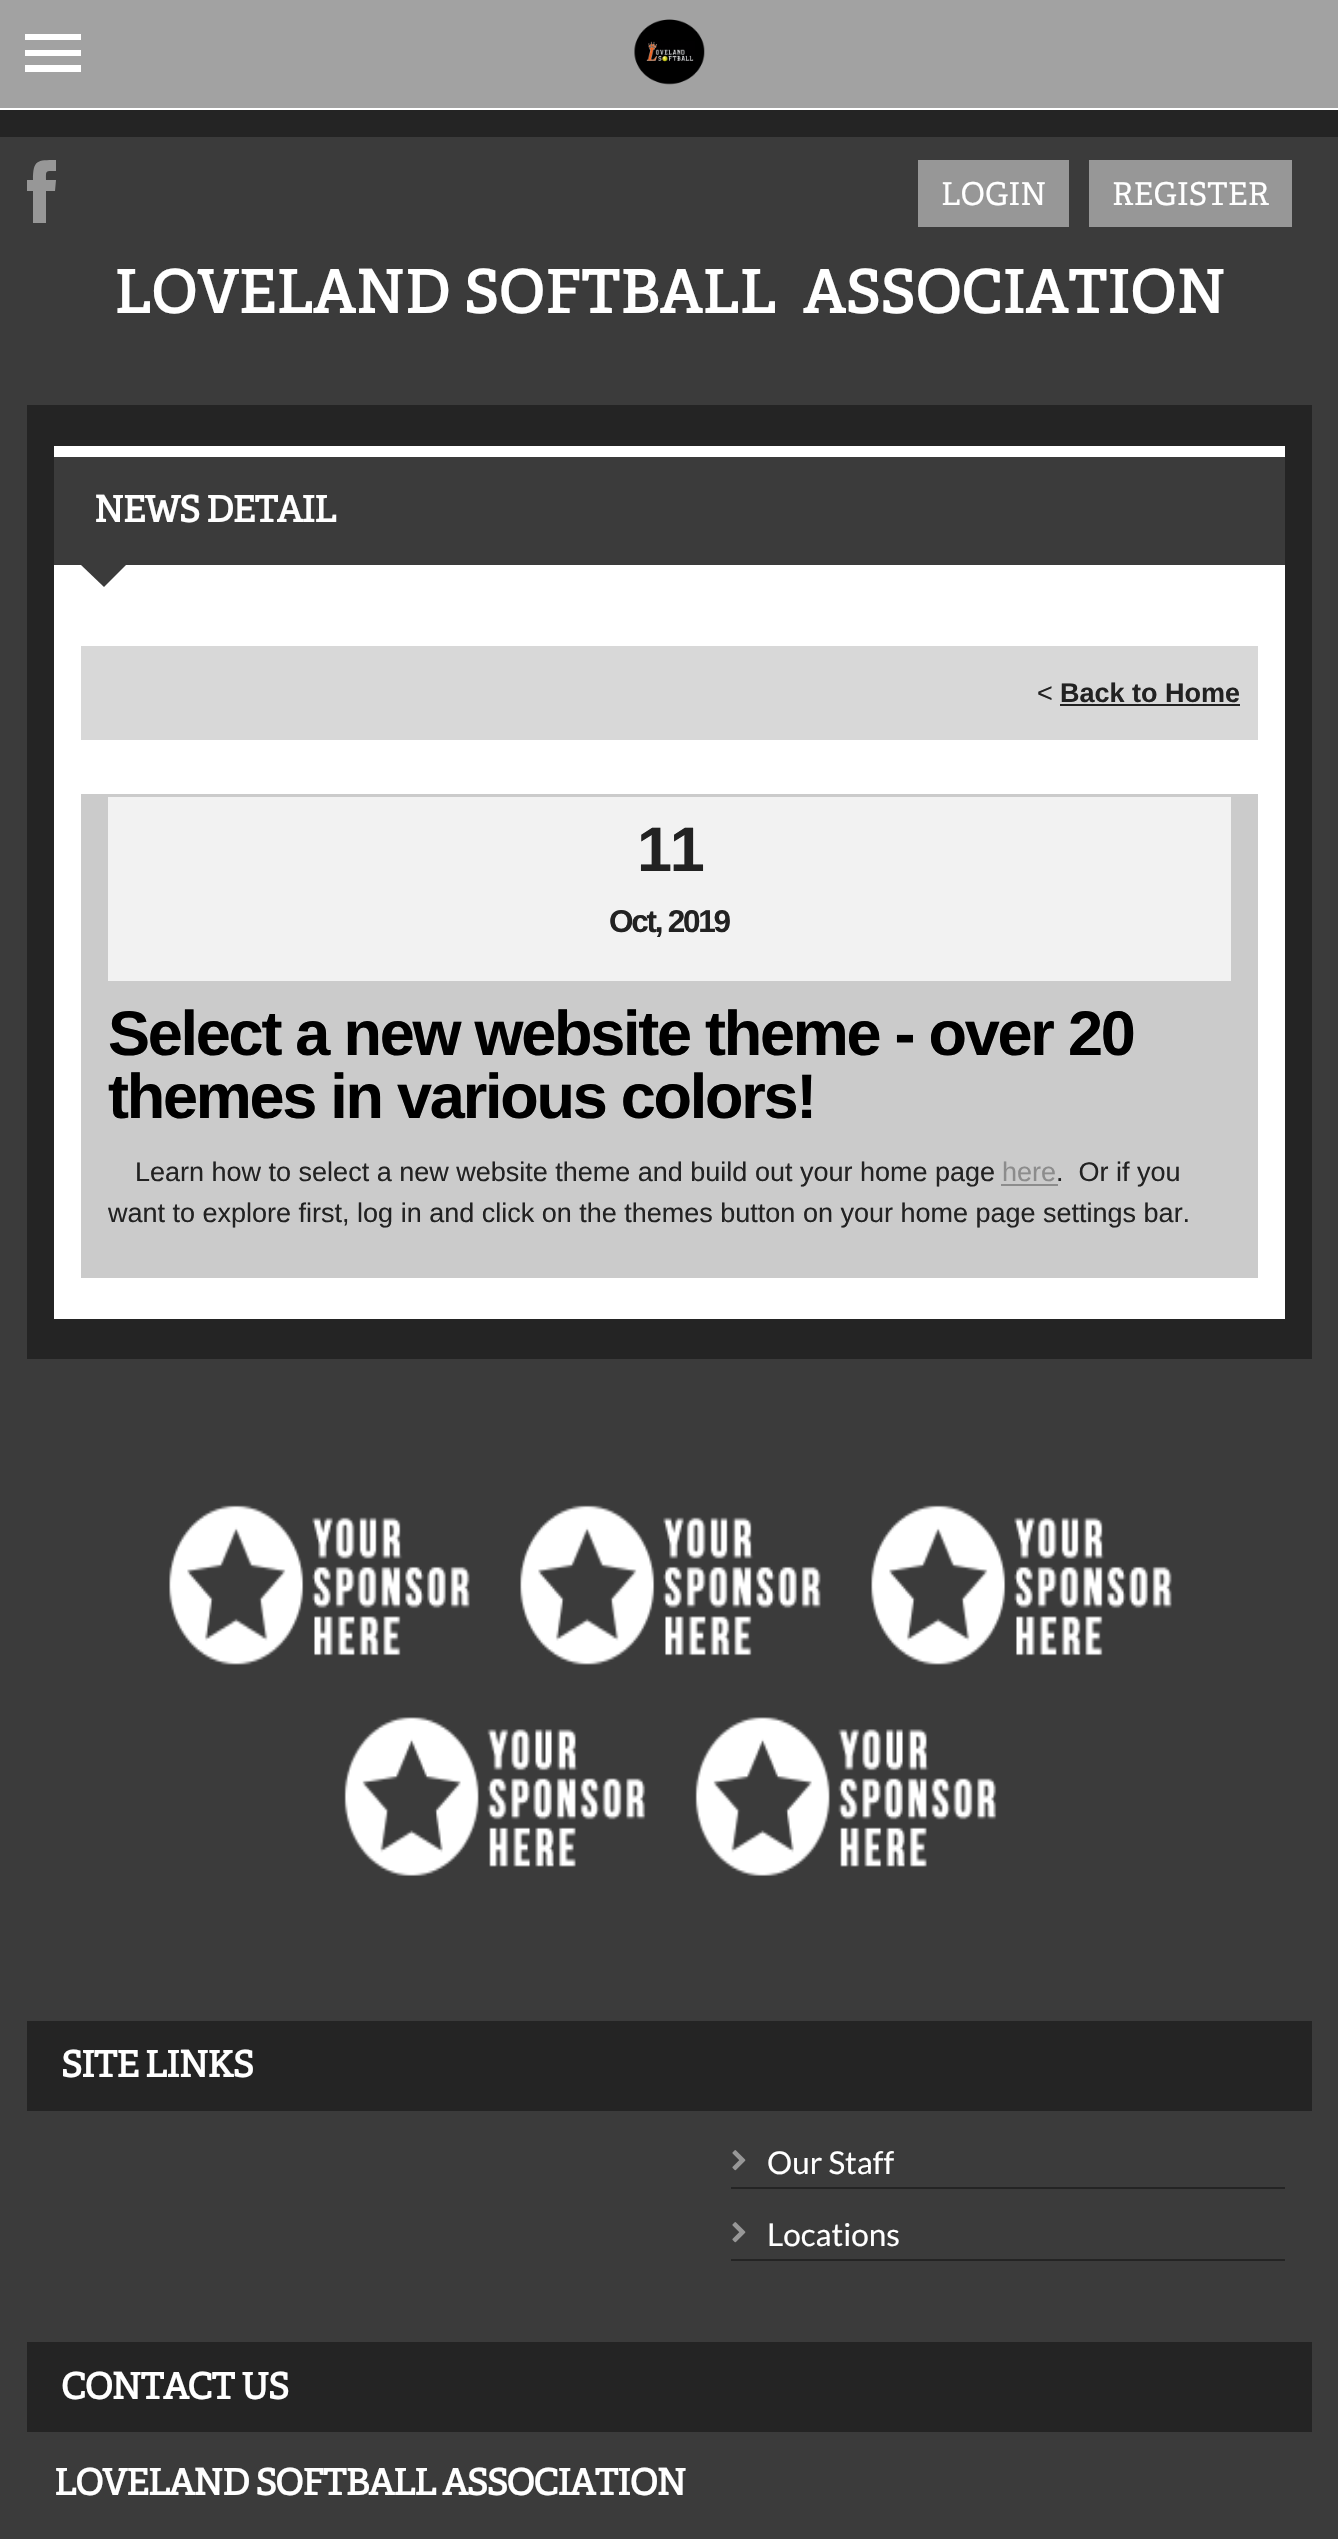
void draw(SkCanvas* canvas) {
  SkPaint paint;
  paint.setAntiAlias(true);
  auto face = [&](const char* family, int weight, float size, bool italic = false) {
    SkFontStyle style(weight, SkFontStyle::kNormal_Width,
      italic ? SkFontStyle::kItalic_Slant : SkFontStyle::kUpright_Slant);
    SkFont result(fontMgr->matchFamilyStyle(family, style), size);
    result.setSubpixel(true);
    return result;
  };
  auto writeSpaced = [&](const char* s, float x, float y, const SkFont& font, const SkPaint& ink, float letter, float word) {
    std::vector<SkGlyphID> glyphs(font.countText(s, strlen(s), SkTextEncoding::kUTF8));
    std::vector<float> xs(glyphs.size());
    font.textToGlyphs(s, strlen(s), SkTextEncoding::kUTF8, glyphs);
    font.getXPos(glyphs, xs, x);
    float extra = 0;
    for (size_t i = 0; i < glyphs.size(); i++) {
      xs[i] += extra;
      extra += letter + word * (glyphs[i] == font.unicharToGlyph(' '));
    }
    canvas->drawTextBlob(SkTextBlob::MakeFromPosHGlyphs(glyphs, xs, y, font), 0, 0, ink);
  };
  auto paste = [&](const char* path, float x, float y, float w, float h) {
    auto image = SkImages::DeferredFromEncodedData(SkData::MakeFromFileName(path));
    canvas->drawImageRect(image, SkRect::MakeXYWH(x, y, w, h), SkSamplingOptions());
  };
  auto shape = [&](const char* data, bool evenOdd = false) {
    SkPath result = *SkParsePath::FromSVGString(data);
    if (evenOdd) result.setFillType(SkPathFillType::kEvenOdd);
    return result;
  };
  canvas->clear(0xff3b3b3b);
  paint.setColor(0xffa2a2a2);
  canvas->drawRect(SkRect::MakeXYWH(0, 0, 1338, 108), paint);
  paint.setColor(0xffffffff);
  canvas->drawRect(SkRect::MakeXYWH(0, 108, 1338, 2), paint);
  canvas->drawPath(shape("M25 34H81V40H25ZM25 50H81V56H25ZM25 65H81V72H25Z"), paint);
  paste("img/1.png", 634, 19, 71, 66);
  paint.setColor(0xff242424);
  canvas->drawRect(SkRect::MakeXYWH(0, 110, 1338, 27), paint);
  paint.setColor(0xff979797);
  canvas->drawPath(shape("M55 191H46V223H33V191H27V180H33C33 160 37 160 56 160V171C45 171 46 170 46 180H56Z"), paint);
  {
    const struct { float x, y, w, h; SkColor color; } items[] = {
      {918, 160, 151, 67, 0xff979797},
      {1089, 160, 203, 67, 0xff979797},
      {27, 405, 1285, 954, 0xff242424},
      {54, 457, 1231, 108, 0xff3b3b3b},
      {54, 446, 1231, 11, 0xffffffff},
      {54, 565, 1231, 754, 0xffffffff},
    };
    for (auto [x, y, w, h, color] : items) {
      paint.setColor(color);
      canvas->drawRect(SkRect::MakeXYWH(x, y, w, h), paint);
    }
  }
  paint.setColor(0xff3b3b3b);
  canvas->drawPath(shape("M81 565H126L104 587Z"), paint);
  {
    const struct { float x, y, w, h; SkColor color; } items[] = {
      {81, 646, 1177, 94, 0xffd8d8d8},
      {1060, 704, 180, 2, 0xff222222},
      {81, 794, 1177, 484, 0xffcbcbcb},
      {108, 797, 1123, 184, 0xfff2f2f2},
      {1001, 1184, 57, 2, 0xff8c8c8c},
    };
    for (auto [x, y, w, h, color] : items) {
      paint.setColor(color);
      canvas->drawRect(SkRect::MakeXYWH(x, y, w, h), paint);
    }
  }
  paste("img/2.png", 169, 1505, 301, 160);
  paste("img/2.png", 520, 1505, 301, 160);
  paste("img/2.png", 871, 1505, 301, 160);
  paste("img/3.png", 344, 1717, 302, 159);
  paste("img/3.png", 695, 1717, 302, 159);
  paint.setColor(0xff242424);
  canvas->drawRect(SkRect::MakeXYWH(27, 2021, 1285, 90), paint);
  canvas->drawRect(SkRect::MakeXYWH(731, 2187, 554, 2), paint);
  paste("img/4.png", 732, 2150, 14, 21);
  canvas->drawRect(SkRect::MakeXYWH(731, 2259, 554, 2), paint);
  paste("img/4.png", 732, 2222, 14, 21);
  canvas->drawRect(SkRect::MakeXYWH(27, 2342, 1285, 90), paint);
  auto f0 = face("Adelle", 400, 31.5f);
  paint.setColor(0xffffffff);
  canvas->drawString("LOGIN", 941, 205, f0, paint);
  canvas->drawString("REGISTER", 1112, 205, f0, paint);
  auto f1 = face("Adelle", 700, 58.5f);
  writeSpaced("LOVELAND SOFTBALL", 114, 313, f1, paint, 0.7f, 0);
  writeSpaced("ASSOCIATION", 803, 313, f1, paint, 0.7f, 0);
  auto f2 = face("Adelle", 700, 36);
  writeSpaced("NEWS DETAIL", 94, 522, f2, paint, -1.1f, 0);
  auto f3 = face("Liberation Sans", 400, 27);
  paint.setColor(0xff222222);
  canvas->drawString("<", 1037, 702, f3, paint);
  auto f4 = face("Liberation Sans", 700, 27);
  canvas->drawString("Back to Home", 1060, 702, f4, paint);
  auto f5 = face("Liberation Sans", 700, 63);
  writeSpaced("11", 637, 871, f5, paint, -2.25f, 0);
  auto f6 = face("Liberation Sans", 700, 31.5f);
  writeSpaced("Oct, 2019", 609, 932, f6, paint, -2.25f, 0);
  paint.setColor(0xff000000);
  writeSpaced("Select a new website theme - over 20", 108, 1055, f5, paint, -2.25f, 0);
  writeSpaced("themes in various colors!", 108, 1118, f5, paint, -2.25f, 0);
  paint.setColor(0xff222222);
  canvas->drawString("Learn how to select a new website theme and build out your home page", 135, 1181, f3, paint);
  paint.setColor(0xff8c8c8c);
  canvas->drawString("here", 1002, 1181, f3, paint);
  paint.setColor(0xff222222);
  canvas->drawString(".  Or if you", 1056, 1181, f3, paint);
  canvas->drawString("want to explore first, log in and click on the themes button on your home page settings bar.", 108, 1222, f3, paint);
  paint.setColor(0xffffffff);
  writeSpaced("SITE LINKS", 61, 2077, f2, paint, -1.1f, 0);
  auto f7 = face("Lato", 400, 31.5f);
  canvas->drawString("Our Staff", 767, 2174, f7, paint);
  canvas->drawString("Locations", 767, 2246, f7, paint);
  writeSpaced("CONTACT US", 61, 2399, f2, paint, -1.1f, 0);
  writeSpaced("LOVELAND SOFTBALL ASSOCIATION", 54, 2495, f2, paint, -1.1f, 0);
}
